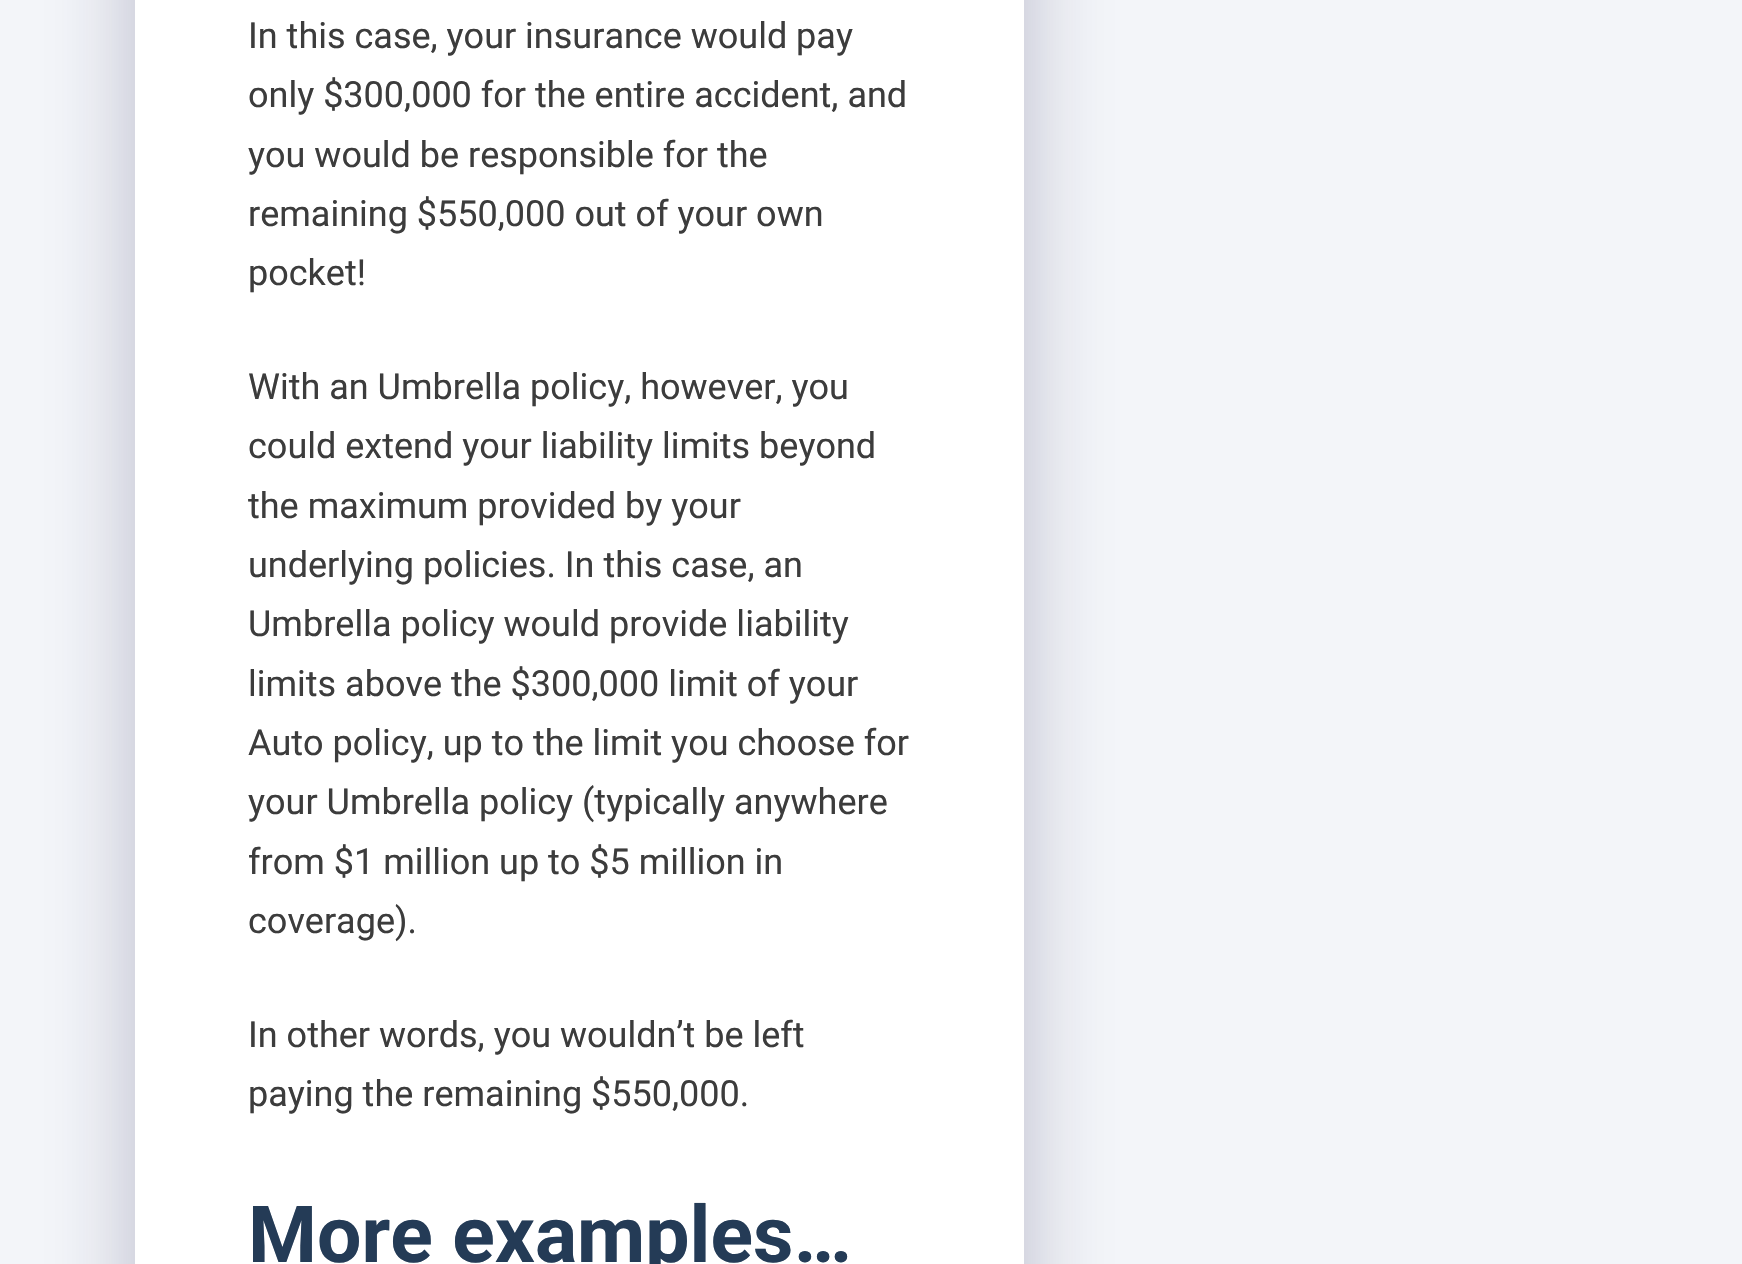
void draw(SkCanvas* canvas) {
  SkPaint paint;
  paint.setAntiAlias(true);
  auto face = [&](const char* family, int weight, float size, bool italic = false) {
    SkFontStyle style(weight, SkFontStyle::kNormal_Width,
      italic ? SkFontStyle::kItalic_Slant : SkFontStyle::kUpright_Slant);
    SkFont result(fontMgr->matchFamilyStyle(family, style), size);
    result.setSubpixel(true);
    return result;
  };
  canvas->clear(0xfff3f5f9);
  paint.setColor(0x451c1949);
  paint.setMaskFilter(SkMaskFilter::MakeBlur(kNormal_SkBlurStyle, 45));
  canvas->drawRoundRect(SkRect::MakeXYWH(135, -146, 889, 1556), 11, 11, paint);
  paint.setMaskFilter(nullptr);
  paint.setColor(0xffffffff);
  canvas->drawRect(SkRect::MakeXYWH(135, 0, 889, 1264), paint);
  auto f0 = face("Roboto", 400, 36);
  paint.setColor(0xff3c3c3c);
  {
    const struct { const char* s; float x, y; } items[] = {
      {"In this case, your insurance would pay", 248, 48},
      {"only $300,000 for the entire accident, and", 248, 107},
      {"you would be responsible for the", 248, 167},
      {"remaining $550,000 out of your own", 248, 226},
      {"pocket!", 248, 285},
      {"With an Umbrella policy, however, you", 248, 399},
      {"could extend your liability limits beyond", 248, 458},
      {"the maximum provided by your", 248, 518},
      {"underlying policies. In this case, an", 248, 577},
      {"Umbrella policy would provide liability", 248, 636},
      {"limits above the $300,000 limit of your", 248, 696},
      {"Auto policy, up to the limit you choose for", 248, 755},
      {"your Umbrella policy (typically anywhere", 248, 814},
      {"from $1 million up to $5 million in", 248, 874},
      {"coverage).", 248, 933},
      {"In other words, you wouldn’t be left", 248, 1047},
      {"paying the remaining $550,000.", 248, 1106},
    };
    for (auto [s, x, y] : items) {
      canvas->drawString(s, x, y, f0, paint);
    }
  }
  auto f1 = face("Roboto", 700, 78.75f);
  paint.setColor(0xff243b56);
  canvas->drawString("More examples…", 248, 1262, f1, paint);
}
